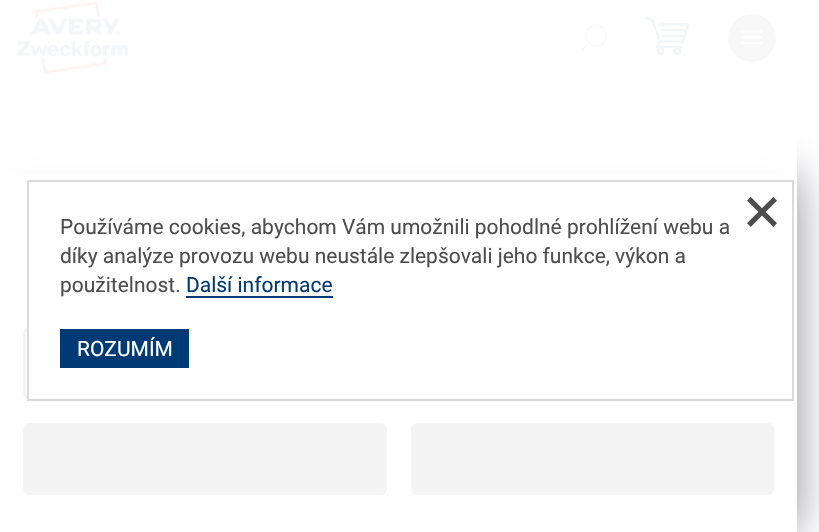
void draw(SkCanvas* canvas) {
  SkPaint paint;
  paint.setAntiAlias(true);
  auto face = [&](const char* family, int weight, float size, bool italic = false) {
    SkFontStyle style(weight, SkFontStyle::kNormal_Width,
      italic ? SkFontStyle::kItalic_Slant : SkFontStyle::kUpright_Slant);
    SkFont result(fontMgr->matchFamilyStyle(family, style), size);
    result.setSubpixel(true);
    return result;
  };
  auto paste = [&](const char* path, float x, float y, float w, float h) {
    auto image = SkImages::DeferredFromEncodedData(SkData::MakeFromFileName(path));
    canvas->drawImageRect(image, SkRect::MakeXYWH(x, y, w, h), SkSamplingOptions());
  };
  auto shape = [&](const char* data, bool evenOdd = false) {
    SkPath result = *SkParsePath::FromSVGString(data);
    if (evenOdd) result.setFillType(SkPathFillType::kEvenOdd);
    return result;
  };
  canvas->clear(0xffffffff);
  paste("img/1.png", 16, 0, 113, 75);
  paste("img/2.png", 645, 16, 45, 39);
  paste("img/3.png", 580, 24, 28, 28);
  paint.setColor(0xff666666);
  canvas->drawCircle(752, 38, 24, paint);
  paste("img/4.png", 741, 30, 21, 15);
  paint.setColor(0x801b1939);
  paint.setMaskFilter(SkMaskFilter::MakeBlur(kNormal_SkBlurStyle, 22.5f));
  canvas->drawRoundRect(SkRect::MakeXYWH(0, 174, 797, 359), 12, 12, paint);
  paint.setMaskFilter(nullptr);
  paint.setColor(0xfff8fafb);
  canvas->drawPath(shape("M12 174H785C791.5 174 797 179.5 797 186V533H0V186C0 179.5 5.5 174 12 174Z"), paint);
  paint.setStroke(true);
  paint.setStrokeWidth(3);
  paint.setColor(0xff252525);
  canvas->drawRoundRect(SkRect::MakeXYWH(24.5f, 328.5f, 748, 69), 4.5f, 4.5f, paint);
  paint.setStroke(false);
  canvas->drawRoundRect(SkRect::MakeXYWH(23, 423, 364, 72), 6, 6, paint);
  canvas->drawRoundRect(SkRect::MakeXYWH(411, 423, 363, 72), 6, 6, paint);
  paint.setColor(0xf2ffffff);
  canvas->drawRect(SkRect::MakeXYWH(0, 0, 797, 532), paint);
  paint.setColor(0xffffffff);
  canvas->drawRect(SkRect::MakeXYWH(29, 327, 745, 72), paint);
  paint.setStroke(true);
  paint.setStrokeWidth(2);
  paint.setColor(0xffdadada);
  canvas->drawRect(SkRect::MakeXYWH(28, 181, 765, 219), paint);
  paste("img/5.png", 747, 197, 30, 30);
  paint.setStroke(false);
  paint.setColor(0xff003a75);
  canvas->drawRect(SkRect::MakeXYWH(186, 296, 147, 2), paint);
  canvas->drawRect(SkRect::MakeXYWH(60, 329, 129, 39), paint);
  auto f0 = face("Roboto", 400, 21);
  paint.setColor(0xff4d4d4d);
  {
    const struct { const char* s; float x, y; } items[] = {
      {"Používáme cookies, abychom Vám umožnili pohodlné prohlížení webu a", 60, 234},
      {"díky analýze provozu webu neustále zlepšovali jeho funkce, výkon a", 60, 263},
      {"použitelnost.", 60, 292},
    };
    for (auto [s, x, y] : items) {
      canvas->drawString(s, x, y, f0, paint);
    }
  }
  paint.setColor(0xff003a75);
  canvas->drawString("Další informace", 186, 292, f0, paint);
  paint.setColor(0xffffffff);
  canvas->drawString("ROZUMÍM", 77, 356, f0, paint);
}
